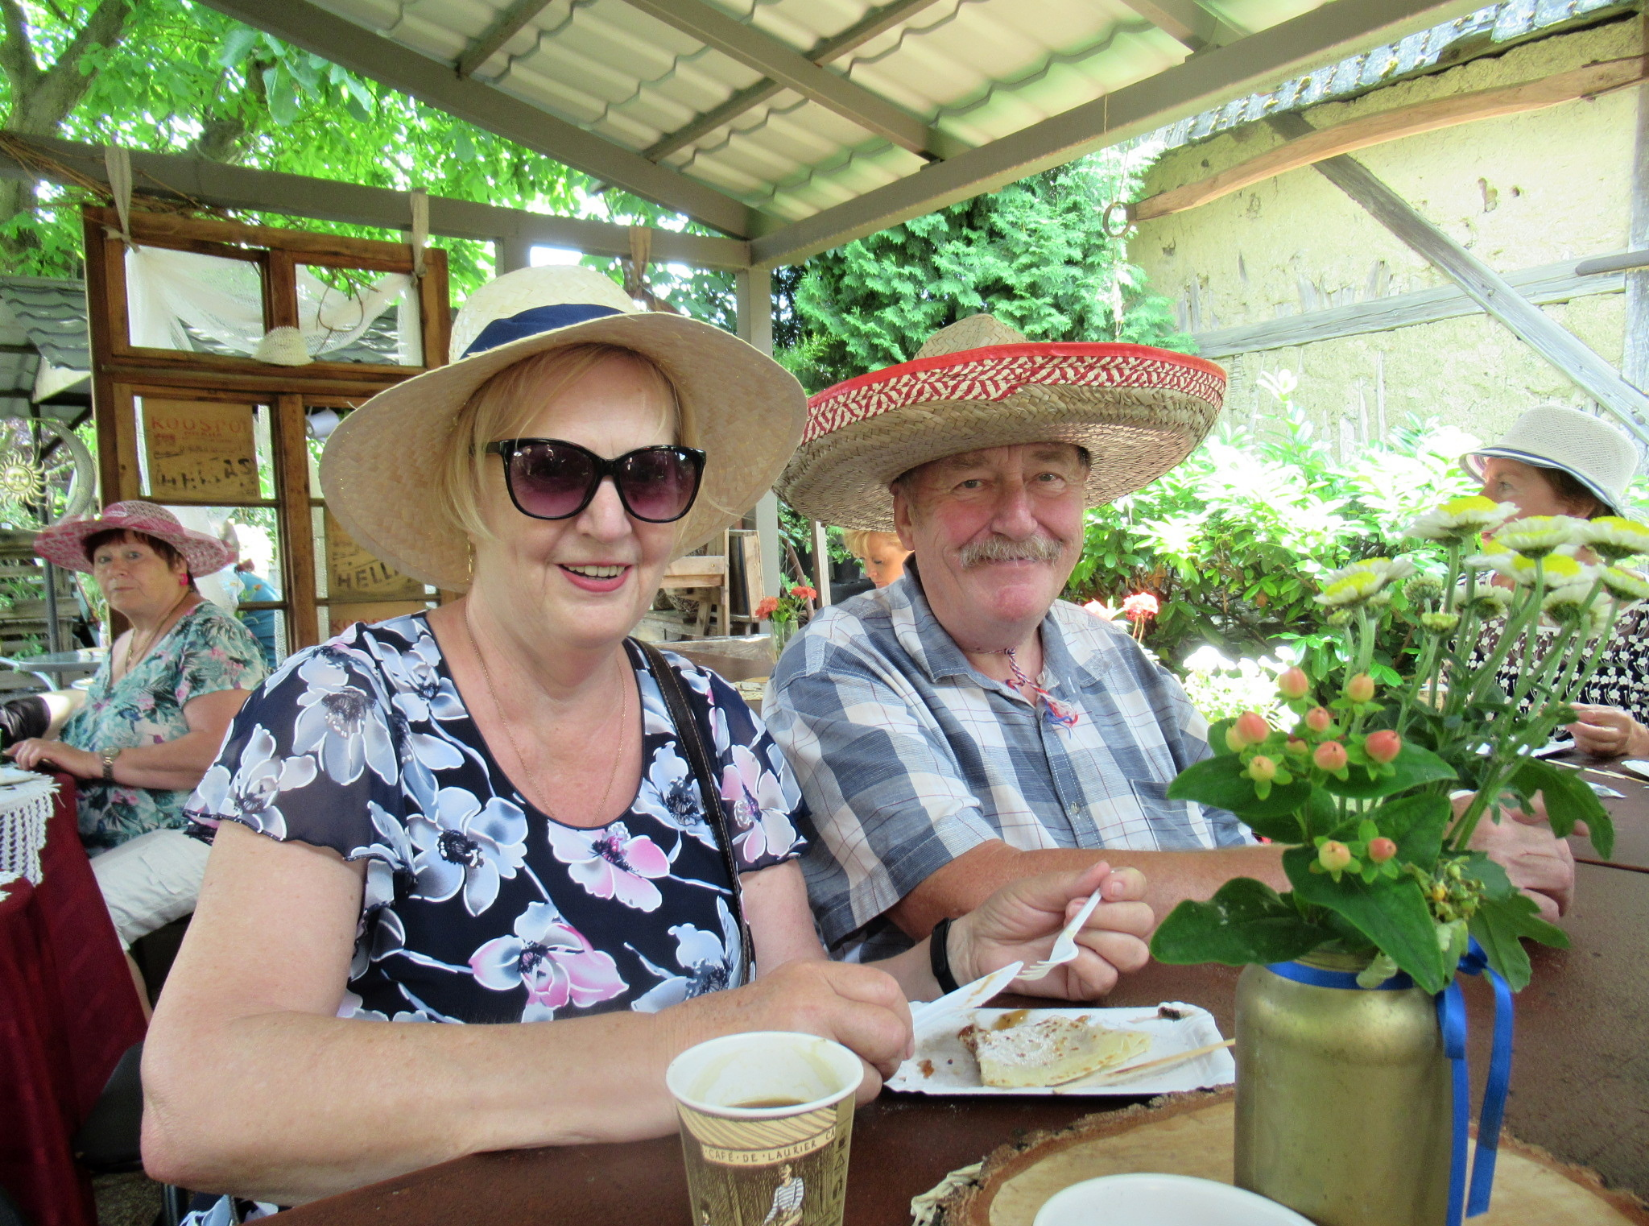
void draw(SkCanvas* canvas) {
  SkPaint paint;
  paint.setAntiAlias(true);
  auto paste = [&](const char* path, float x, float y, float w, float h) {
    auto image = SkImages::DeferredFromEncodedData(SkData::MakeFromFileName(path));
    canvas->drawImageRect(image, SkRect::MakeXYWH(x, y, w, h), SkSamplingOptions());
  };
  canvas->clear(0xffffffff);
  paste("img/1.png", 0, 0, 1649, 1226);
}
